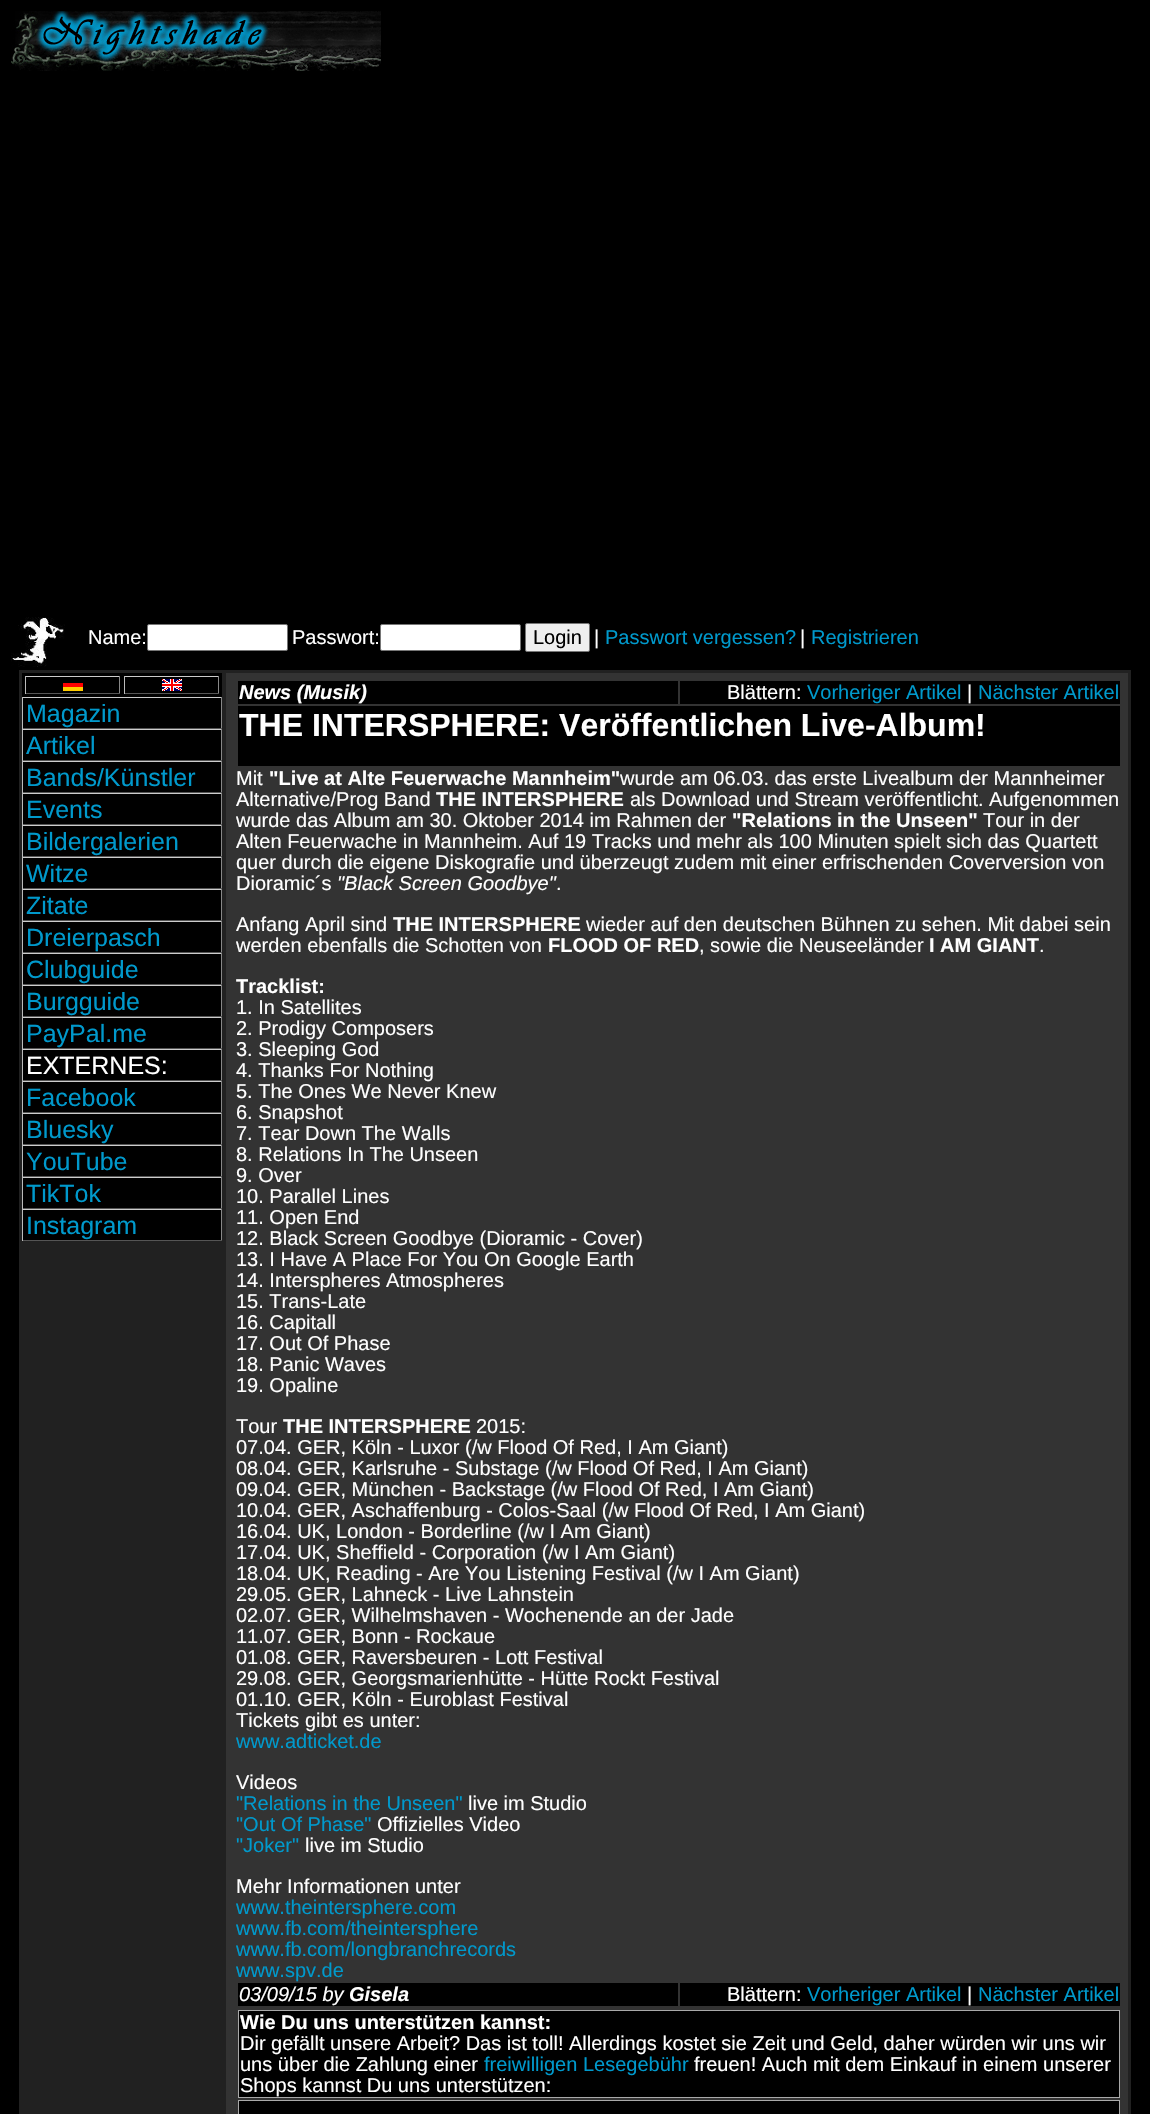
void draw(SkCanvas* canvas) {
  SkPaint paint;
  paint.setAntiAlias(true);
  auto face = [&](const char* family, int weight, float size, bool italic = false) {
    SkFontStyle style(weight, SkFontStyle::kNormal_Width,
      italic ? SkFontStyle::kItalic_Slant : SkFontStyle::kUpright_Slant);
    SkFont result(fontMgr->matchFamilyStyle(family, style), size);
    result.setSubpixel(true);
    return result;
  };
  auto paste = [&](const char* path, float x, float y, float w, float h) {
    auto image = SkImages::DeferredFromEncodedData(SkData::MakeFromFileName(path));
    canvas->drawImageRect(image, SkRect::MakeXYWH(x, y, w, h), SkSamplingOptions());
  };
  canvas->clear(0xff000000);
  paste("img/1.png", 11, 11, 370, 60);
  paste("img/2.png", 11, 617, 54, 50);
  paint.setColor(0xffffffff);
  canvas->drawRoundRect(SkRect::MakeXYWH(147.5f, 624.5f, 140, 26), 1.5f, 1.5f, paint);
  paint.setStroke(true);
  paint.setStrokeWidth(1);
  paint.setColor(0xff767676);
  canvas->drawRoundRect(SkRect::MakeXYWH(147.5f, 624.5f, 140, 26), 1.5f, 1.5f, paint);
  paint.setStroke(false);
  paint.setColor(0xffffffff);
  canvas->drawRoundRect(SkRect::MakeXYWH(380.5f, 624.5f, 140, 26), 1.5f, 1.5f, paint);
  paint.setStroke(true);
  paint.setColor(0xff767676);
  canvas->drawRoundRect(SkRect::MakeXYWH(380.5f, 624.5f, 140, 26), 1.5f, 1.5f, paint);
  paint.setStroke(false);
  paint.setColor(0xffefefef);
  canvas->drawRoundRect(SkRect::MakeXYWH(525.5f, 623.5f, 64, 28), 1.5f, 1.5f, paint);
  paint.setStroke(true);
  paint.setColor(0xff767676);
  canvas->drawRoundRect(SkRect::MakeXYWH(525.5f, 623.5f, 64, 28), 1.5f, 1.5f, paint);
  paint.setStroke(false);
  {
    const struct { float x, y, w, h; SkColor color; } items[] = {
      {19, 670, 1112, 1444, 0xff212121},
      {22, 673, 200, 24, 0xff000000},
      {25, 676, 95, 1, 0xffcccccc},
      {119, 676, 1, 18, 0xff888888},
      {25, 693, 95, 1, 0xff555555},
      {25, 676, 1, 18, 0xffbbbbbb},
    };
    for (auto [x, y, w, h, color] : items) {
      paint.setColor(color);
      canvas->drawRect(SkRect::MakeXYWH(x, y, w, h), paint);
    }
  }
  paste("img/3.png", 63, 683, 20, 8);
  {
    const struct { float x, y, w, h; SkColor color; } items[] = {
      {124, 676, 95, 1, 0xffcccccc},
      {218, 676, 1, 18, 0xff888888},
      {124, 693, 95, 1, 0xff555555},
      {124, 676, 1, 18, 0xffbbbbbb},
    };
    for (auto [x, y, w, h, color] : items) {
      paint.setColor(color);
      canvas->drawRect(SkRect::MakeXYWH(x, y, w, h), paint);
    }
  }
  paste("img/4.png", 162, 679, 20, 12);
  {
    const struct { float x, y, w, h; SkColor color; } items[] = {
      {23, 698, 198, 30, 0xff000000},
      {22, 697, 200, 1, 0xffcccccc},
      {221, 697, 1, 32, 0xff888888},
      {22, 728, 200, 1, 0xff555555},
      {22, 697, 1, 32, 0xffbbbbbb},
      {23, 730, 198, 30, 0xff000000},
      {22, 729, 200, 1, 0xffcccccc},
      {221, 729, 1, 32, 0xff888888},
      {22, 760, 200, 1, 0xff555555},
      {22, 729, 1, 32, 0xffbbbbbb},
      {23, 762, 198, 30, 0xff000000},
      {22, 761, 200, 1, 0xffcccccc},
      {221, 761, 1, 32, 0xff888888},
      {22, 792, 200, 1, 0xff555555},
      {22, 761, 1, 32, 0xffbbbbbb},
      {23, 794, 198, 30, 0xff000000},
      {22, 793, 200, 1, 0xffcccccc},
      {221, 793, 1, 32, 0xff888888},
      {22, 824, 200, 1, 0xff555555},
      {22, 793, 1, 32, 0xffbbbbbb},
      {23, 826, 198, 30, 0xff000000},
      {22, 825, 200, 1, 0xffcccccc},
      {221, 825, 1, 32, 0xff888888},
      {22, 856, 200, 1, 0xff555555},
      {22, 825, 1, 32, 0xffbbbbbb},
      {23, 858, 198, 30, 0xff000000},
      {22, 857, 200, 1, 0xffcccccc},
      {221, 857, 1, 32, 0xff888888},
      {22, 888, 200, 1, 0xff555555},
      {22, 857, 1, 32, 0xffbbbbbb},
      {23, 890, 198, 30, 0xff000000},
      {22, 889, 200, 1, 0xffcccccc},
      {221, 889, 1, 32, 0xff888888},
      {22, 920, 200, 1, 0xff555555},
      {22, 889, 1, 32, 0xffbbbbbb},
      {23, 922, 198, 30, 0xff000000},
      {22, 921, 200, 1, 0xffcccccc},
      {221, 921, 1, 32, 0xff888888},
      {22, 952, 200, 1, 0xff555555},
      {22, 921, 1, 32, 0xffbbbbbb},
      {23, 954, 198, 30, 0xff000000},
      {22, 953, 200, 1, 0xffcccccc},
      {221, 953, 1, 32, 0xff888888},
      {22, 984, 200, 1, 0xff555555},
      {22, 953, 1, 32, 0xffbbbbbb},
      {23, 986, 198, 30, 0xff000000},
      {22, 985, 200, 1, 0xffcccccc},
      {221, 985, 1, 32, 0xff888888},
      {22, 1016, 200, 1, 0xff555555},
      {22, 985, 1, 32, 0xffbbbbbb},
      {23, 1018, 198, 30, 0xff000000},
      {22, 1017, 200, 1, 0xffcccccc},
      {221, 1017, 1, 32, 0xff888888},
      {22, 1048, 200, 1, 0xff555555},
      {22, 1017, 1, 32, 0xffbbbbbb},
      {23, 1050, 198, 30, 0xff000000},
      {22, 1049, 200, 1, 0xffcccccc},
      {221, 1049, 1, 32, 0xff888888},
      {22, 1080, 200, 1, 0xff555555},
      {22, 1049, 1, 32, 0xffbbbbbb},
      {23, 1082, 198, 30, 0xff000000},
      {22, 1081, 200, 1, 0xffcccccc},
      {221, 1081, 1, 32, 0xff888888},
      {22, 1112, 200, 1, 0xff555555},
      {22, 1081, 1, 32, 0xffbbbbbb},
      {23, 1114, 198, 30, 0xff000000},
      {22, 1113, 200, 1, 0xffcccccc},
      {221, 1113, 1, 32, 0xff888888},
      {22, 1144, 200, 1, 0xff555555},
      {22, 1113, 1, 32, 0xffbbbbbb},
      {23, 1146, 198, 30, 0xff000000},
      {22, 1145, 200, 1, 0xffcccccc},
      {221, 1145, 1, 32, 0xff888888},
      {22, 1176, 200, 1, 0xff555555},
      {22, 1145, 1, 32, 0xffbbbbbb},
      {23, 1178, 198, 30, 0xff000000},
      {22, 1177, 200, 1, 0xffcccccc},
      {221, 1177, 1, 32, 0xff888888},
      {22, 1208, 200, 1, 0xff555555},
      {22, 1177, 1, 32, 0xffbbbbbb},
      {23, 1210, 198, 30, 0xff000000},
      {22, 1209, 200, 1, 0xffcccccc},
      {221, 1209, 1, 32, 0xff888888},
      {22, 1240, 200, 1, 0xff555555},
      {22, 1209, 1, 32, 0xffbbbbbb},
      {226, 673, 902, 1441, 0xff333333},
      {238, 681, 440, 23, 0xff000000},
      {680, 681, 440, 23, 0xff000000},
      {238, 706, 882, 60, 0xff000000},
      {238, 1983, 440, 23, 0xff000000},
      {680, 1983, 440, 23, 0xff000000},
    };
    for (auto [x, y, w, h, color] : items) {
      paint.setColor(color);
      canvas->drawRect(SkRect::MakeXYWH(x, y, w, h), paint);
    }
  }
  canvas->drawRect(SkRect::MakeXYWH(238.5f, 2010.5f, 881, 87), paint);
  paint.setStroke(true);
  paint.setColor(0xffa9a9a9);
  canvas->drawRect(SkRect::MakeXYWH(238.5f, 2010.5f, 881, 87), paint);
  paint.setStroke(false);
  paint.setColor(0xff000000);
  canvas->drawRect(SkRect::MakeXYWH(238.5f, 2100.5f, 881, 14), paint);
  paint.setStroke(true);
  paint.setColor(0xffa9a9a9);
  canvas->drawRect(SkRect::MakeXYWH(238.5f, 2100.5f, 881, 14), paint);
  auto f0 = face("Liberation Sans", 400, 20);
  paint.setStroke(false);
  paint.setColor(0xffffffff);
  canvas->drawString("Name:", 88, 644, f0, paint);
  canvas->drawString("Passwort:", 292, 644, f0, paint);
  paint.setColor(0xff000000);
  canvas->drawString("Login", 533, 644, f0, paint);
  paint.setColor(0xffffffff);
  canvas->drawString("|", 594, 644, f0, paint);
  paint.setColor(0xff0099cc);
  canvas->drawString("Passwort vergessen?", 605, 644, f0, paint);
  paint.setColor(0xffffffff);
  canvas->drawString("|", 800, 644, f0, paint);
  paint.setColor(0xff0099cc);
  canvas->drawString("Registrieren", 811, 644, f0, paint);
  auto f1 = face("Liberation Sans", 400, 25);
  {
    const struct { const char* s; float x, y; } items[] = {
      {"Magazin", 26, 722},
      {"Artikel", 26, 754},
      {"Bands/Künstler", 26, 786},
      {"Events", 26, 818},
      {"Bildergalerien", 26, 850},
      {"Witze", 26, 882},
      {"Zitate", 26, 914},
      {"Dreierpasch", 26, 946},
      {"Clubguide", 26, 978},
      {"Burgguide", 26, 1010},
      {"PayPal.me", 26, 1042},
    };
    for (auto [s, x, y] : items) {
      canvas->drawString(s, x, y, f1, paint);
    }
  }
  paint.setColor(0xffffffff);
  canvas->drawString("EXTERNES:", 26, 1074, f1, paint);
  paint.setColor(0xff0099cc);
  {
    const struct { const char* s; float x, y; } items[] = {
      {"Facebook", 26, 1106},
      {"Bluesky", 26, 1138},
      {"YouTube", 26, 1170},
      {"TikTok", 26, 1202},
      {"Instagram", 26, 1234},
    };
    for (auto [s, x, y] : items) {
      canvas->drawString(s, x, y, f1, paint);
    }
  }
  auto f2 = face("Liberation Sans", 700, 20, true);
  paint.setColor(0xffffffff);
  canvas->drawString("News (Musik)", 239, 699, f2, paint);
  canvas->drawString("Blättern:", 727, 699, f0, paint);
  paint.setColor(0xff0099cc);
  canvas->drawString("Vorheriger Artikel", 807, 699, f0, paint);
  paint.setColor(0xffffffff);
  canvas->drawString("|", 967, 699, f0, paint);
  paint.setColor(0xff0099cc);
  canvas->drawString("Nächster Artikel", 978, 699, f0, paint);
  auto f3 = face("Liberation Sans", 700, 32);
  paint.setColor(0xffffffff);
  canvas->drawString("THE INTERSPHERE: Veröffentlichen Live-Album!", 239, 736, f3, paint);
  canvas->drawString("Mit", 236, 785, f0, paint);
  auto f4 = face("Liberation Sans", 700, 20);
  canvas->drawString("\"Live at Alte Feuerwache Mannheim\"", 269, 785, f4, paint);
  canvas->drawString("wurde am 06.03. das erste Livealbum der Mannheimer", 620, 785, f0, paint);
  canvas->drawString("Alternative/Prog Band", 236, 806, f0, paint);
  canvas->drawString("THE INTERSPHERE", 436, 806, f4, paint);
  canvas->drawString("als Download und Stream veröffentlicht. Aufgenommen", 630, 806, f0, paint);
  canvas->drawString("wurde das Album am 30. Oktober 2014 im Rahmen der", 236, 827, f0, paint);
  canvas->drawString("\"Relations in the Unseen\"", 732, 827, f4, paint);
  {
    const struct { const char* s; float x, y; } items[] = {
      {"Tour in der", 983, 827},
      {"Alten Feuerwache in Mannheim. Auf 19 Tracks und mehr als 100 Minuten spielt sich das Quartett", 236, 848},
      {"quer durch die eigene Diskografie und überzeugt zudem mit einer erfrischenden Coverversion von", 236, 869},
      {"Dioramic´s", 236, 890},
    };
    for (auto [s, x, y] : items) {
      canvas->drawString(s, x, y, f0, paint);
    }
  }
  auto f5 = face("Liberation Sans", 400, 20, true);
  canvas->drawString("\"Black Screen Goodbye\"", 337, 890, f5, paint);
  canvas->drawString(".", 556, 890, f0, paint);
  canvas->drawString("Anfang April sind", 236, 931, f0, paint);
  canvas->drawString("THE INTERSPHERE", 393, 931, f4, paint);
  canvas->drawString("wieder auf den deutschen Bühnen zu sehen. Mit dabei sein", 586, 931, f0, paint);
  canvas->drawString("werden ebenfalls die Schotten von", 236, 952, f0, paint);
  canvas->drawString("FLOOD OF RED", 548, 952, f4, paint);
  canvas->drawString(", sowie die Neuseeländer", 699, 952, f0, paint);
  canvas->drawString("I AM GIANT", 929, 952, f4, paint);
  canvas->drawString(".", 1039, 952, f0, paint);
  canvas->drawString("Tracklist:", 236, 993, f4, paint);
  {
    const struct { const char* s; float x, y; } items[] = {
      {"1. In Satellites", 236, 1014},
      {"2. Prodigy Composers", 236, 1035},
      {"3. Sleeping God", 236, 1056},
      {"4. Thanks For Nothing", 236, 1077},
      {"5. The Ones We Never Knew", 236, 1098},
      {"6. Snapshot", 236, 1119},
      {"7. Tear Down The Walls", 236, 1140},
      {"8. Relations In The Unseen", 236, 1161},
      {"9. Over", 236, 1182},
      {"10. Parallel Lines", 236, 1203},
      {"11. Open End", 236, 1224},
      {"12. Black Screen Goodbye (Dioramic - Cover)", 236, 1245},
      {"13. I Have A Place For You On Google Earth", 236, 1266},
      {"14. Interspheres Atmospheres", 236, 1287},
      {"15. Trans-Late", 236, 1308},
      {"16. Capitall", 236, 1329},
      {"17. Out Of Phase", 236, 1350},
      {"18. Panic Waves", 236, 1371},
      {"19. Opaline", 236, 1392},
      {"Tour", 236, 1433},
    };
    for (auto [s, x, y] : items) {
      canvas->drawString(s, x, y, f0, paint);
    }
  }
  canvas->drawString("THE INTERSPHERE", 283, 1433, f4, paint);
  {
    const struct { const char* s; float x, y; } items[] = {
      {"2015:", 476, 1433},
      {"07.04. GER, Köln - Luxor (/w Flood Of Red, I Am Giant)", 236, 1454},
      {"08.04. GER, Karlsruhe - Substage (/w Flood Of Red, I Am Giant)", 236, 1475},
      {"09.04. GER, München - Backstage (/w Flood Of Red, I Am Giant)", 236, 1496},
      {"10.04. GER, Aschaffenburg - Colos-Saal (/w Flood Of Red, I Am Giant)", 236, 1517},
      {"16.04. UK, London - Borderline (/w I Am Giant)", 236, 1538},
      {"17.04. UK, Sheffield - Corporation (/w I Am Giant)", 236, 1559},
      {"18.04. UK, Reading - Are You Listening Festival (/w I Am Giant)", 236, 1580},
      {"29.05. GER, Lahneck - Live Lahnstein", 236, 1601},
      {"02.07. GER, Wilhelmshaven - Wochenende an der Jade", 236, 1622},
      {"11.07. GER, Bonn - Rockaue", 236, 1643},
      {"01.08. GER, Raversbeuren - Lott Festival", 236, 1664},
      {"29.08. GER, Georgsmarienhütte - Hütte Rockt Festival", 236, 1685},
      {"01.10. GER, Köln - Euroblast Festival", 236, 1706},
      {"Tickets gibt es unter:", 236, 1727},
    };
    for (auto [s, x, y] : items) {
      canvas->drawString(s, x, y, f0, paint);
    }
  }
  paint.setColor(0xff0099cc);
  canvas->drawString("www.adticket.de", 236, 1748, f0, paint);
  paint.setColor(0xffffffff);
  canvas->drawString("Videos", 236, 1789, f0, paint);
  paint.setColor(0xff0099cc);
  canvas->drawString("\"Relations in the Unseen\"", 236, 1810, f0, paint);
  paint.setColor(0xffffffff);
  canvas->drawString("live im Studio", 468, 1810, f0, paint);
  paint.setColor(0xff0099cc);
  canvas->drawString("\"Out Of Phase\"", 236, 1831, f0, paint);
  paint.setColor(0xffffffff);
  canvas->drawString("Offizielles Video", 377, 1831, f0, paint);
  paint.setColor(0xff0099cc);
  canvas->drawString("\"Joker\"", 236, 1852, f0, paint);
  paint.setColor(0xffffffff);
  canvas->drawString("live im Studio", 305, 1852, f0, paint);
  canvas->drawString("Mehr Informationen unter", 236, 1893, f0, paint);
  paint.setColor(0xff0099cc);
  {
    const struct { const char* s; float x, y; } items[] = {
      {"www.theintersphere.com", 236, 1914},
      {"www.fb.com/theintersphere", 236, 1935},
      {"www.fb.com/longbranchrecords", 236, 1956},
      {"www.spv.de", 236, 1977},
    };
    for (auto [s, x, y] : items) {
      canvas->drawString(s, x, y, f0, paint);
    }
  }
  paint.setColor(0xffffffff);
  canvas->drawString("03/09/15 by", 239, 2001, f5, paint);
  canvas->drawString("Gisela", 349, 2001, f2, paint);
  canvas->drawString("Blättern:", 727, 2001, f0, paint);
  paint.setColor(0xff0099cc);
  canvas->drawString("Vorheriger Artikel", 807, 2001, f0, paint);
  paint.setColor(0xffffffff);
  canvas->drawString("|", 967, 2001, f0, paint);
  paint.setColor(0xff0099cc);
  canvas->drawString("Nächster Artikel", 978, 2001, f0, paint);
  paint.setColor(0xffffffff);
  canvas->drawString("Wie Du uns unterstützen kannst:", 240, 2029, f4, paint);
  canvas->drawString("Dir gefällt unsere Arbeit? Das ist toll! Allerdings kostet sie Zeit und Geld, daher würden wir uns wir", 240, 2050, f0, paint);
  canvas->drawString("uns über die Zahlung einer", 240, 2071, f0, paint);
  paint.setColor(0xff0099cc);
  canvas->drawString("freiwilligen Lesegebühr", 484, 2071, f0, paint);
  paint.setColor(0xffffffff);
  canvas->drawString("freuen! Auch mit dem Einkauf in einem unserer", 694, 2071, f0, paint);
  canvas->drawString("Shops kannst Du uns unterstützen:", 240, 2092, f0, paint);
}
